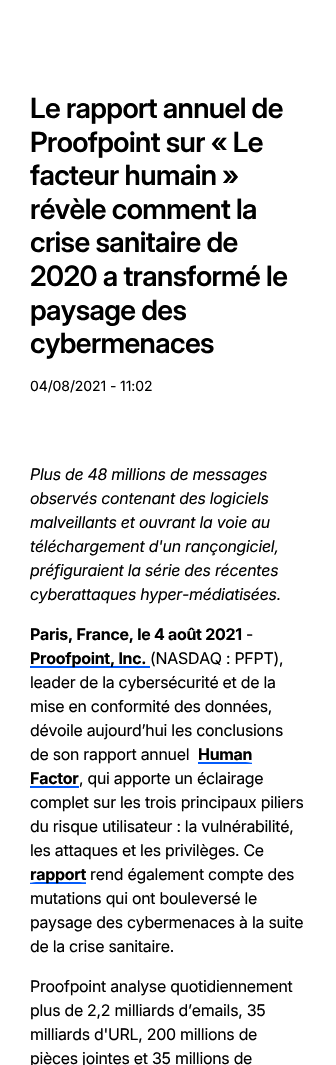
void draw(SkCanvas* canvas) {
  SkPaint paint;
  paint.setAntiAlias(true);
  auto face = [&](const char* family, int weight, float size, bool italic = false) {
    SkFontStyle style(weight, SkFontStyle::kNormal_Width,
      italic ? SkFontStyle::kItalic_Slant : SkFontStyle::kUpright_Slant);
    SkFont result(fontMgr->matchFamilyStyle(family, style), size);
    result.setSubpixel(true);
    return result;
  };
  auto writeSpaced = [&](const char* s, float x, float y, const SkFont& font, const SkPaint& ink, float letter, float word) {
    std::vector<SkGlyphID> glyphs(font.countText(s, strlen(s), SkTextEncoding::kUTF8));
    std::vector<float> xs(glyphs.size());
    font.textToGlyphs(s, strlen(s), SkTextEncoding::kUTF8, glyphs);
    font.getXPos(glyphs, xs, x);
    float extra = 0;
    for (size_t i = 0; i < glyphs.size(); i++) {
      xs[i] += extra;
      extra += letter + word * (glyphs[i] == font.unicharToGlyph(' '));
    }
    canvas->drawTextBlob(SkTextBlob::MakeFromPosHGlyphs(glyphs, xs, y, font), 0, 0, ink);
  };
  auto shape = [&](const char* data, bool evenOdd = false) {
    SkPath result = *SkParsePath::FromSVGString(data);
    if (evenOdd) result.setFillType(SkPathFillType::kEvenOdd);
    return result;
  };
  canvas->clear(0xffffffff);
  canvas->save();
  canvas->clipRect(SkRect::MakeXYWH(30, 648, 120, 20));
  paint.setColor(0xff035bfb);
  canvas->drawPath(shape("M-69 549H249V767H-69ZM30 644H150C151 644 151 644 151 645V665C151 666 151 666 150 666H30C29 666 29 666 29 665V645C29 644 29 644 30 644Z", true), paint);
  canvas->restore();
  canvas->save();
  canvas->clipRect(SkRect::MakeXYWH(198, 744, 54, 20));
  canvas->drawPath(shape("M99 645H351V863H99ZM198 740H243C255 740 253 738 253 748V758C253 765 252 762 243 762H197V748C197 747 196 740 198 740Z", true), paint);
  canvas->restore();
  canvas->save();
  canvas->clipRect(SkRect::MakeXYWH(30, 768, 49, 20));
  canvas->drawPath(shape("M-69 669H178V887H-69ZM30 764H79C80 764 80 764 80 765V785C80 786 80 786 79 786H30C29 786 29 786 29 785V765C29 764 29 764 30 764Z", true), paint);
  canvas->restore();
  canvas->save();
  canvas->clipRect(SkRect::MakeXYWH(30, 864, 56, 20));
  canvas->drawPath(shape("M-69 765H185V983H-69ZM30 860H86L87 861V874C87 885 89 882 77 882H39C30 882 29 885 29 878C29 875 28 860 30 860Z", true), paint);
  canvas->restore();
  auto f0 = face("Inter", 600, 28);
  paint.setColor(0xff000000);
  {
    const struct { const char* s; float x, y; } items[] = {
      {"Le rapport annuel de", 30, 118},
      {"Proofpoint sur « Le", 30, 152},
      {"facteur humain »", 30, 185},
      {"révèle comment la", 30, 219},
      {"crise sanitaire de", 30, 252},
      {"2020 a transformé le", 30, 286},
      {"paysage des", 30, 320},
      {"cybermenaces", 30, 353},
    };
    for (auto [s, x, y] : items) {
      writeSpaced(s, x, y, f0, paint, -0.6f, 0);
    }
  }
  auto f1 = face("Inter", 400, 14);
  writeSpaced("04/08/2021 - 11:02", 30, 391, f1, paint, -0.1f, 0);
  auto f2 = face("Inter", 400, 16, true);
  {
    const struct { const char* s; float x, y; } items[] = {
      {"Plus de 48 millions de messages", 30, 480},
      {"observés contenant des logiciels", 30, 504},
      {"malveillants et ouvrant la voie au", 30, 528},
      {"téléchargement d'un rançongiciel,", 30, 552},
      {"préfiguraient la série des récentes", 30, 576},
      {"cyberattaques hyper-médiatisées.", 30, 600},
    };
    for (auto [s, x, y] : items) {
      writeSpaced(s, x, y, f2, paint, -0.25f, 0);
    }
  }
  auto f3 = face("Inter", 700, 16);
  writeSpaced("Paris, France, le 4 août 2021", 30, 640, f3, paint, -0.25f, 0);
  auto f4 = face("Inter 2", 400, 16);
  writeSpaced("-", 246, 640, f4, paint, -0.25f, 0);
  writeSpaced("Proofpoint, Inc.", 30, 664, f3, paint, -0.25f, 0);
  {
    const struct { const char* s; float x, y; } items[] = {
      {"(NASDAQ : PFPT),", 150, 664},
      {"leader de la cybersécurité et de la", 30, 688},
      {"mise en conformité des données,", 30, 712},
      {"dévoile aujourd’hui les conclusions", 30, 736},
      {"de son rapport annuel", 30, 760},
    };
    for (auto [s, x, y] : items) {
      writeSpaced(s, x, y, f4, paint, -0.25f, 0);
    }
  }
  writeSpaced("Human", 198, 760, f3, paint, -0.25f, 0);
  writeSpaced("Factor", 30, 784, f3, paint, -0.25f, 0);
  {
    const struct { const char* s; float x, y; } items[] = {
      {", qui apporte un éclairage", 79, 784},
      {"complet sur les trois principaux piliers", 30, 808},
      {"du risque utilisateur : la vulnérabilité,", 30, 832},
      {"les attaques et les privilèges. Ce", 30, 856},
    };
    for (auto [s, x, y] : items) {
      writeSpaced(s, x, y, f4, paint, -0.25f, 0);
    }
  }
  writeSpaced("rapport", 30, 880, f3, paint, -0.25f, 0);
  {
    const struct { const char* s; float x, y; } items[] = {
      {"rend également compte des", 90, 880},
      {"mutations qui ont bouleversé le", 30, 904},
      {"paysage des cybermenaces à la suite", 30, 928},
      {"de la crise sanitaire.", 30, 952},
      {"Proofpoint analyse quotidiennement", 30, 992},
      {"plus de 2,2 milliards d’emails, 35", 30, 1016},
      {"milliards d'URL, 200 millions de", 30, 1040},
      {"pièces jointes et 35 millions de", 30, 1064},
    };
    for (auto [s, x, y] : items) {
      writeSpaced(s, x, y, f4, paint, -0.25f, 0);
    }
  }
}
